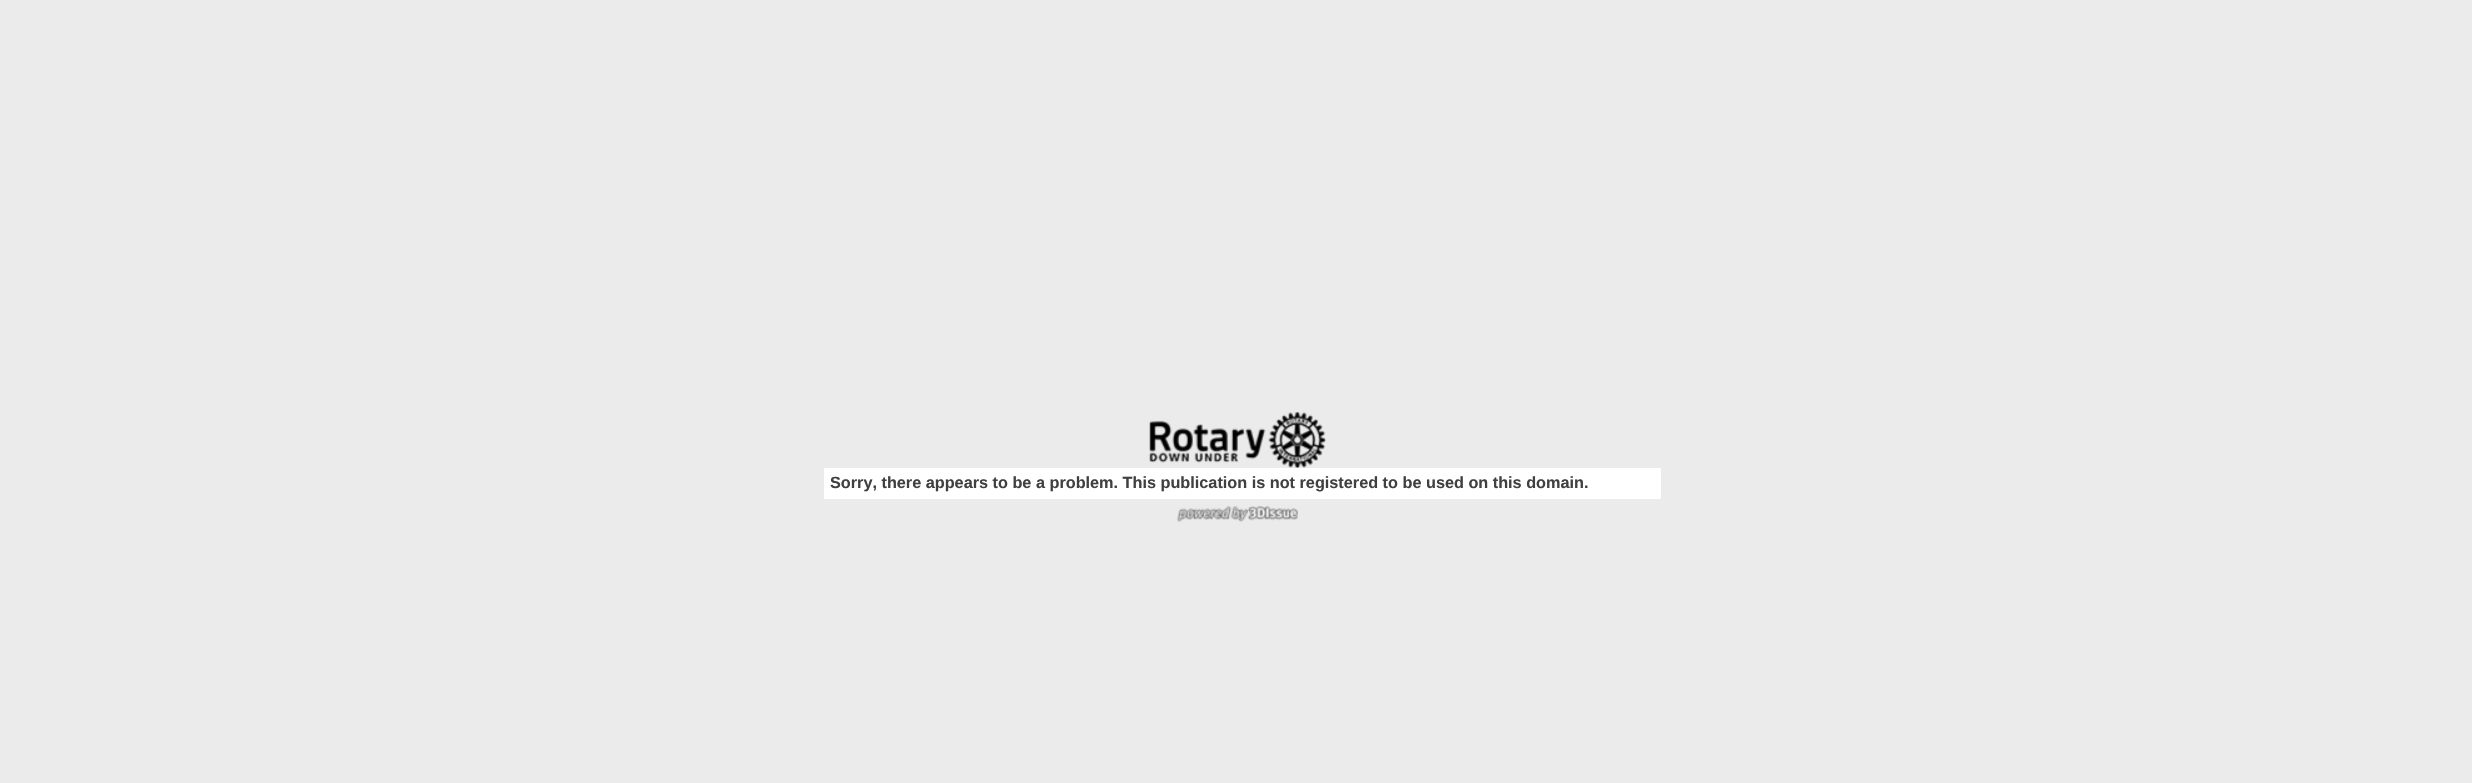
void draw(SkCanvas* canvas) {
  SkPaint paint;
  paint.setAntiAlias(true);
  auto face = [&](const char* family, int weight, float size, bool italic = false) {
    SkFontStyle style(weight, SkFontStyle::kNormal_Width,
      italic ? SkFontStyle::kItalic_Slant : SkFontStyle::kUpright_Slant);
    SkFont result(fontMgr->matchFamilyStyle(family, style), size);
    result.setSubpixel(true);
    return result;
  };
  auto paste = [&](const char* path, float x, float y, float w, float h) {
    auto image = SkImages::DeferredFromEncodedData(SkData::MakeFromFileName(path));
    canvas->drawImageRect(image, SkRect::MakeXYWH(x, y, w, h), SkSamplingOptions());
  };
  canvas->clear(0xffebebeb);
  paste("img/1.png", 1149, 412, 177, 56);
  paint.setColor(0xffffffff);
  canvas->drawRect(SkRect::MakeXYWH(824, 468, 837, 31), paint);
  paste("img/2.png", 1177, 506, 121, 16);
  auto f0 = face("Liberation Sans", 700, 16.25f);
  paint.setColor(0xff404040);
  canvas->drawString("Sorry, there appears to be a problem. This publication is not registered to be used on this domain.", 830, 488, f0, paint);
}
